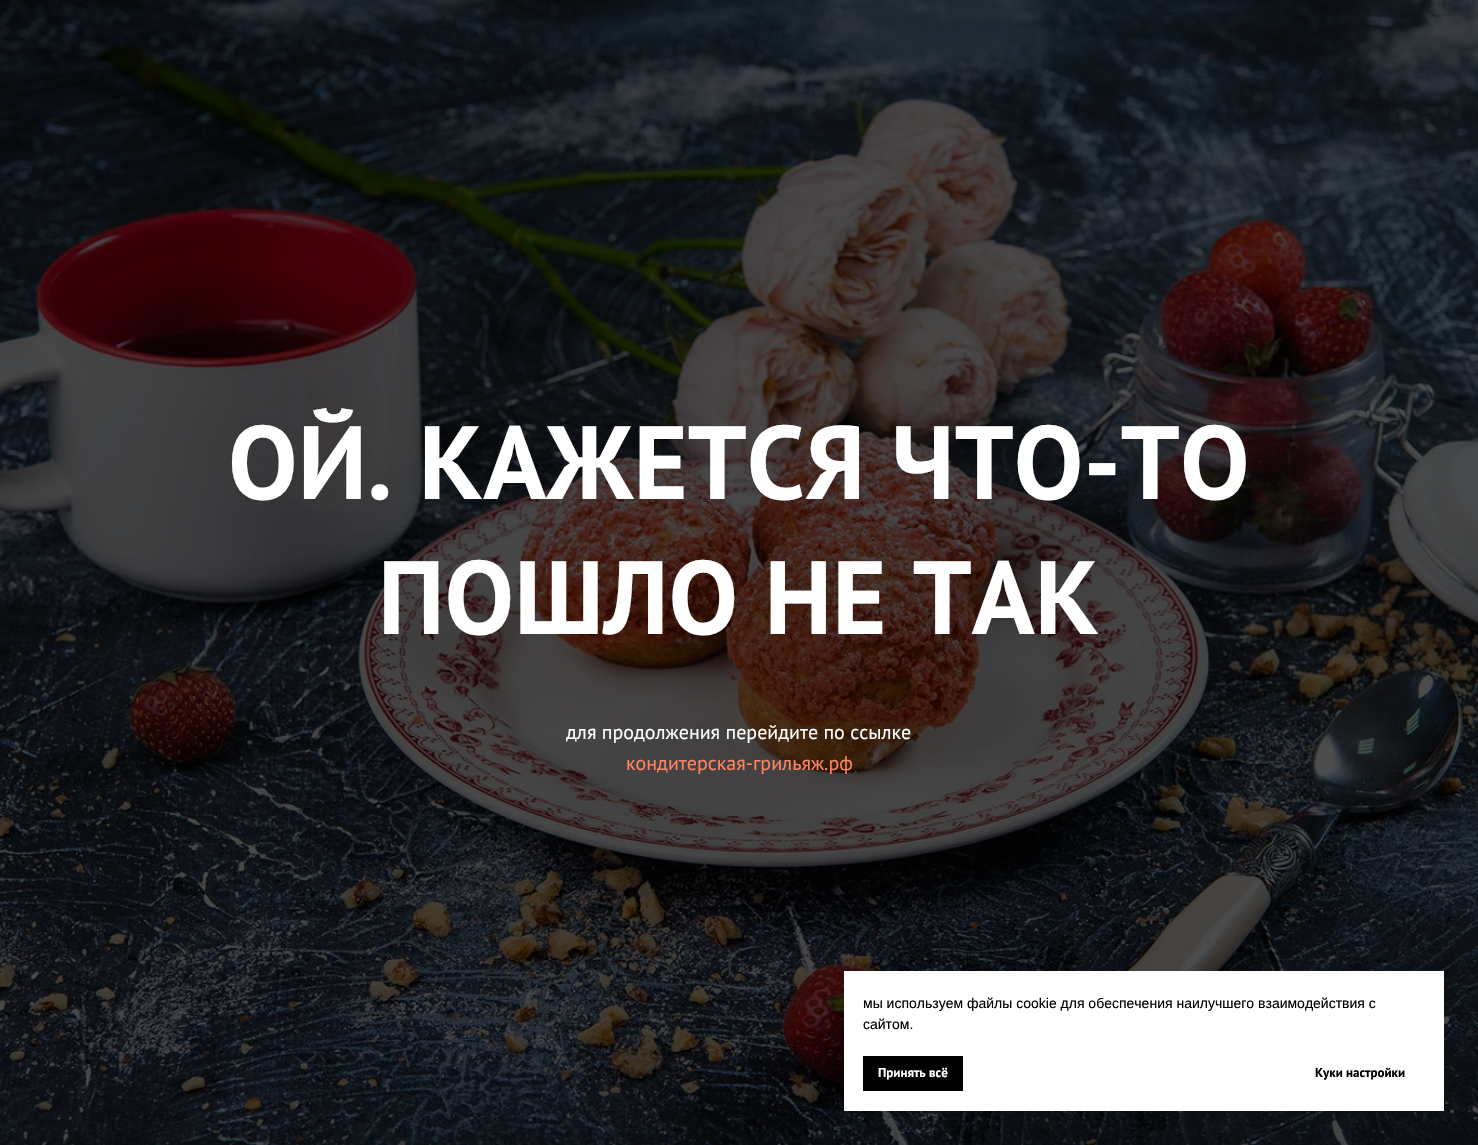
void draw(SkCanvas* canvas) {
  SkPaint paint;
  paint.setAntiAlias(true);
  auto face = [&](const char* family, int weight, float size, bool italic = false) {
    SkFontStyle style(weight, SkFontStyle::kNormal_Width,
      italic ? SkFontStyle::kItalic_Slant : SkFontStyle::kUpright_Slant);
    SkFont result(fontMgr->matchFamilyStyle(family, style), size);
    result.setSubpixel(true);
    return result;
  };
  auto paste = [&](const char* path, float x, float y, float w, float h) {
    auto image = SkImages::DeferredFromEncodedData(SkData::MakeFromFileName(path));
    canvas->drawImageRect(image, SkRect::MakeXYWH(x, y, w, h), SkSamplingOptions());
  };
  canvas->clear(0xffffffff);
  paste("img/1.png", 0, 0, 1478, 1145);
  paint.setColor(0xffffffff);
  canvas->drawRect(SkRect::MakeXYWH(844, 971, 600, 140), paint);
  paint.setColor(0xff000000);
  canvas->drawRect(SkRect::MakeXYWH(863, 1056, 100, 35), paint);
  auto f0 = face("PT Sans", 700, 104);
  paint.setColor(0xffffffff);
  canvas->drawString("ОЙ. КАЖЕТСЯ ЧТО-ТО", 228, 499, f0, paint);
  canvas->drawString("ПОШЛО НЕ ТАК", 378, 634, f0, paint);
  auto f1 = face("PT Sans", 400, 20);
  canvas->drawString("для продолжения перейдите по ссылке", 566, 739, f1, paint);
  paint.setColor(0xffff8562);
  canvas->drawString("кондитерская-грильяж.рф", 626, 770, f1, paint);
  auto f2 = face("Liberation Sans", 400, 14);
  paint.setColor(0xff000000);
  canvas->drawString("мы используем файлы cookie для обеспечения наилучшего взаимодействия с", 863, 1008, f2, paint);
  canvas->drawString("сайтом.", 863, 1029, f2, paint);
  auto f3 = face("PT Sans", 700, 13);
  paint.setColor(0xffffffff);
  canvas->drawString("Принять всё", 878, 1077, f3, paint);
  paint.setColor(0xff000000);
  canvas->drawString("Куки настройки", 1315, 1077, f3, paint);
}
